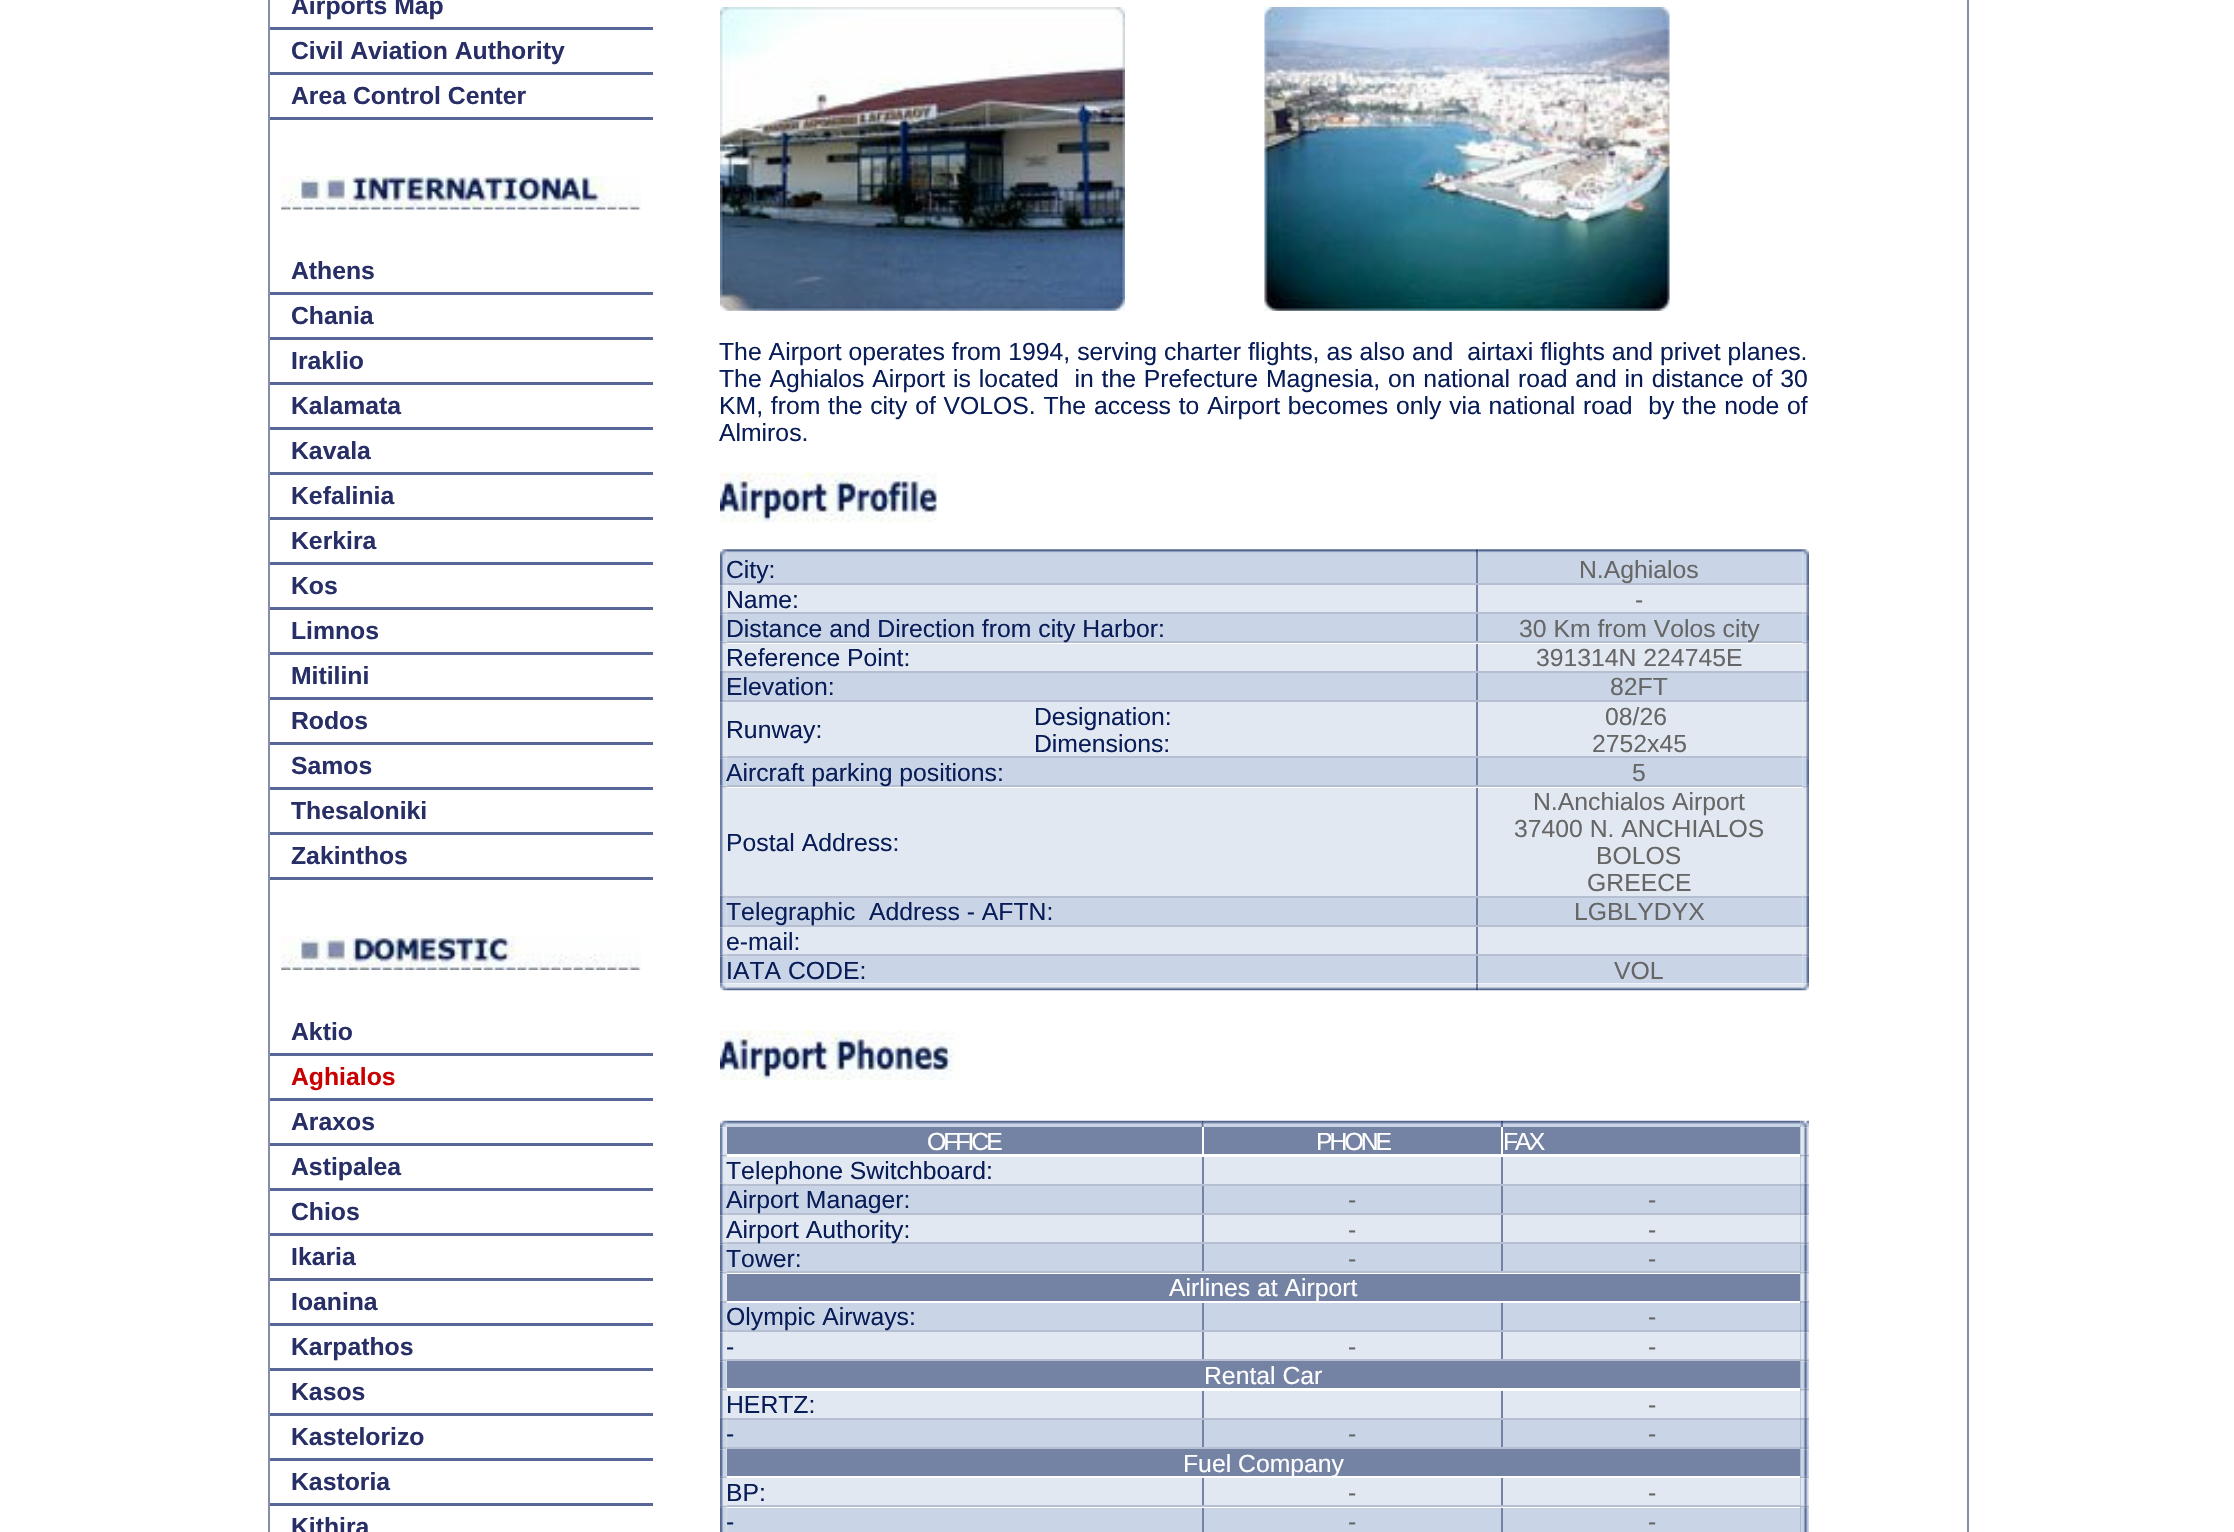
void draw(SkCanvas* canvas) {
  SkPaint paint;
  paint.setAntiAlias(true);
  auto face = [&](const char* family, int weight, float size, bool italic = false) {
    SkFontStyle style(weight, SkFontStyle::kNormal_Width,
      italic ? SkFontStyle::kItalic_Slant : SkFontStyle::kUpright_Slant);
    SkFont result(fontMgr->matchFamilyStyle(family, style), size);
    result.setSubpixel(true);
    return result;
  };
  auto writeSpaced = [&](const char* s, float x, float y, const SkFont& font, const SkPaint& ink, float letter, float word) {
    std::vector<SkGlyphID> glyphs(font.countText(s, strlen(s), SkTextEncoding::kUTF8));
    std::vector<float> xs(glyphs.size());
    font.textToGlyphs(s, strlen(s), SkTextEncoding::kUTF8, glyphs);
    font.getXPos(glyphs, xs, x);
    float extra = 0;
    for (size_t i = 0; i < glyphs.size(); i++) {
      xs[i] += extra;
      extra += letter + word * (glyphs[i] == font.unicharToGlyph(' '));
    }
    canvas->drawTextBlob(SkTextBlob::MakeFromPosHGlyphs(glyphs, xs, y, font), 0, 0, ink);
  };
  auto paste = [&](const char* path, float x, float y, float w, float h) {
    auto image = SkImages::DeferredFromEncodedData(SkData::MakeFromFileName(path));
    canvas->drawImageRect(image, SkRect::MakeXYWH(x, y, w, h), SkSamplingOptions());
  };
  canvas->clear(0xffffffff);
  {
    const struct { float x, y, w, h; SkColor color; } items[] = {
      {268, 0, 2, 1532, 0xff838eab},
      {270, 27, 383, 3, 0xff59669a},
      {270, 72, 383, 3, 0xff59669a},
      {270, 117, 383, 3, 0xff59669a},
    };
    for (auto [x, y, w, h, color] : items) {
      paint.setColor(color);
      canvas->drawRect(SkRect::MakeXYWH(x, y, w, h), paint);
    }
  }
  paste("img/1.png", 281, 175, 360, 35);
  {
    const struct { float x, y, w, h; SkColor color; } items[] = {
      {270, 292, 383, 3, 0xff59669a},
      {270, 337, 383, 3, 0xff59669a},
      {270, 382, 383, 3, 0xff59669a},
      {270, 427, 383, 3, 0xff59669a},
      {270, 472, 383, 3, 0xff59669a},
      {270, 517, 383, 3, 0xff59669a},
      {270, 562, 383, 3, 0xff59669a},
      {270, 607, 383, 3, 0xff59669a},
      {270, 652, 383, 3, 0xff59669a},
      {270, 697, 383, 3, 0xff59669a},
      {270, 742, 383, 3, 0xff59669a},
      {270, 787, 383, 3, 0xff59669a},
      {270, 832, 383, 3, 0xff59669a},
      {270, 877, 383, 3, 0xff59669a},
    };
    for (auto [x, y, w, h, color] : items) {
      paint.setColor(color);
      canvas->drawRect(SkRect::MakeXYWH(x, y, w, h), paint);
    }
  }
  paste("img/2.png", 281, 936, 360, 34);
  {
    const struct { float x, y, w, h; SkColor color; } items[] = {
      {270, 1053, 383, 3, 0xff59669a},
      {270, 1098, 383, 3, 0xff59669a},
      {270, 1143, 383, 3, 0xff59669a},
      {270, 1188, 383, 3, 0xff59669a},
      {270, 1233, 383, 3, 0xff59669a},
      {270, 1278, 383, 3, 0xff59669a},
      {270, 1323, 383, 3, 0xff59669a},
      {270, 1368, 383, 3, 0xff59669a},
      {270, 1413, 383, 3, 0xff59669a},
      {270, 1458, 383, 3, 0xff59669a},
      {270, 1503, 383, 3, 0xff59669a},
    };
    for (auto [x, y, w, h, color] : items) {
      paint.setColor(color);
      canvas->drawRect(SkRect::MakeXYWH(x, y, w, h), paint);
    }
  }
  paste("img/3.png", 720, 7, 405, 304);
  paste("img/4.png", 1264, 7, 406, 304);
  paste("img/5.png", 720, 472, 217, 51);
  paste("img/6.png", 720, 549, 7, 7);
  paste("img/7.png", 726, 549, 750, 7);
  paste("img/8.png", 1476, 549, 3, 7);
  paste("img/9.png", 1478, 549, 325, 7);
  paste("img/10.png", 1802, 549, 7, 7);
  paste("img/11.png", 720, 556, 7, 27);
  {
    const struct { float x, y, w, h; SkColor color; } items[] = {
      {727, 556, 749, 27, 0xffc9d5e6},
      {1476, 556, 2, 27, 0xff7482a4},
      {1478, 556, 324, 27, 0xffc9d5e6},
    };
    for (auto [x, y, w, h, color] : items) {
      paint.setColor(color);
      canvas->drawRect(SkRect::MakeXYWH(x, y, w, h), paint);
    }
  }
  paste("img/12.png", 1802, 556, 7, 27);
  paste("img/13.png", 720, 583, 7, 3);
  paint.setColor(0xffb6bfd2);
  canvas->drawRect(SkRect::MakeXYWH(727, 583, 1075, 2), paint);
  paste("img/14.png", 1802, 583, 7, 3);
  paste("img/15.png", 720, 585, 7, 28);
  {
    const struct { float x, y, w, h; SkColor color; } items[] = {
      {727, 585, 749, 27, 0xffe1e8f1},
      {1476, 585, 2, 27, 0xff7482a4},
      {1478, 585, 324, 27, 0xffe1e8f1},
    };
    for (auto [x, y, w, h, color] : items) {
      paint.setColor(color);
      canvas->drawRect(SkRect::MakeXYWH(x, y, w, h), paint);
    }
  }
  paste("img/16.png", 1802, 585, 7, 28);
  paste("img/17.png", 720, 612, 7, 3);
  paint.setColor(0xffb6bfd2);
  canvas->drawRect(SkRect::MakeXYWH(727, 612, 1075, 2), paint);
  paste("img/18.png", 1802, 612, 7, 3);
  paste("img/19.png", 720, 614, 7, 28);
  {
    const struct { float x, y, w, h; SkColor color; } items[] = {
      {727, 614, 749, 27, 0xffc9d5e6},
      {1476, 614, 2, 27, 0xff7482a4},
      {1478, 614, 324, 27, 0xffc9d5e6},
    };
    for (auto [x, y, w, h, color] : items) {
      paint.setColor(color);
      canvas->drawRect(SkRect::MakeXYWH(x, y, w, h), paint);
    }
  }
  paste("img/20.png", 1802, 614, 7, 28);
  paste("img/21.png", 720, 641, 7, 3);
  paint.setColor(0xffb6bfd2);
  canvas->drawRect(SkRect::MakeXYWH(727, 641, 1075, 2), paint);
  paste("img/22.png", 1802, 641, 7, 3);
  paste("img/23.png", 720, 643, 7, 28);
  {
    const struct { float x, y, w, h; SkColor color; } items[] = {
      {727, 644, 749, 27, 0xffe1e8f1},
      {1476, 644, 2, 27, 0xff7482a4},
      {1478, 644, 324, 27, 0xffe1e8f1},
    };
    for (auto [x, y, w, h, color] : items) {
      paint.setColor(color);
      canvas->drawRect(SkRect::MakeXYWH(x, y, w, h), paint);
    }
  }
  paste("img/24.png", 1802, 643, 7, 28);
  paste("img/25.png", 720, 670, 7, 3);
  paint.setColor(0xffb6bfd2);
  canvas->drawRect(SkRect::MakeXYWH(727, 671, 1075, 2), paint);
  paste("img/26.png", 1802, 670, 7, 3);
  paste("img/11.png", 720, 673, 7, 27);
  {
    const struct { float x, y, w, h; SkColor color; } items[] = {
      {727, 673, 749, 27, 0xffc9d5e6},
      {1476, 673, 2, 27, 0xff7482a4},
      {1478, 673, 324, 27, 0xffc9d5e6},
    };
    for (auto [x, y, w, h, color] : items) {
      paint.setColor(color);
      canvas->drawRect(SkRect::MakeXYWH(x, y, w, h), paint);
    }
  }
  paste("img/12.png", 1802, 673, 7, 27);
  paste("img/13.png", 720, 700, 7, 3);
  paint.setColor(0xffb6bfd2);
  canvas->drawRect(SkRect::MakeXYWH(727, 700, 1075, 2), paint);
  paste("img/14.png", 1802, 700, 7, 3);
  paste("img/27.png", 720, 702, 7, 55);
  {
    const struct { float x, y, w, h; SkColor color; } items[] = {
      {727, 702, 749, 54, 0xffe1e8f1},
      {1476, 702, 2, 54, 0xff7482a4},
      {1478, 702, 324, 54, 0xffe1e8f1},
    };
    for (auto [x, y, w, h, color] : items) {
      paint.setColor(color);
      canvas->drawRect(SkRect::MakeXYWH(x, y, w, h), paint);
    }
  }
  paste("img/28.png", 1802, 702, 7, 55);
  paste("img/17.png", 720, 756, 7, 3);
  paint.setColor(0xffb6bfd2);
  canvas->drawRect(SkRect::MakeXYWH(727, 756, 1075, 2), paint);
  paste("img/18.png", 1802, 756, 7, 3);
  paste("img/19.png", 720, 758, 7, 28);
  {
    const struct { float x, y, w, h; SkColor color; } items[] = {
      {727, 758, 749, 27, 0xffc9d5e6},
      {1476, 758, 2, 27, 0xff7482a4},
      {1478, 758, 324, 27, 0xffc9d5e6},
    };
    for (auto [x, y, w, h, color] : items) {
      paint.setColor(color);
      canvas->drawRect(SkRect::MakeXYWH(x, y, w, h), paint);
    }
  }
  paste("img/20.png", 1802, 758, 7, 28);
  paste("img/21.png", 720, 785, 7, 3);
  paint.setColor(0xffb6bfd2);
  canvas->drawRect(SkRect::MakeXYWH(727, 785, 1075, 2), paint);
  paste("img/22.png", 1802, 785, 7, 3);
  paste("img/29.png", 720, 787, 7, 109);
  {
    const struct { float x, y, w, h; SkColor color; } items[] = {
      {727, 788, 749, 108, 0xffe1e8f1},
      {1476, 788, 2, 108, 0xff7482a4},
      {1478, 788, 324, 108, 0xffe1e8f1},
    };
    for (auto [x, y, w, h, color] : items) {
      paint.setColor(color);
      canvas->drawRect(SkRect::MakeXYWH(x, y, w, h), paint);
    }
  }
  paste("img/30.png", 1802, 787, 7, 109);
  paste("img/25.png", 720, 895, 7, 3);
  paint.setColor(0xffb6bfd2);
  canvas->drawRect(SkRect::MakeXYWH(727, 896, 1075, 2), paint);
  paste("img/26.png", 1802, 895, 7, 3);
  paste("img/11.png", 720, 898, 7, 27);
  {
    const struct { float x, y, w, h; SkColor color; } items[] = {
      {727, 898, 749, 27, 0xffc9d5e6},
      {1476, 898, 2, 27, 0xff7482a4},
      {1478, 898, 324, 27, 0xffc9d5e6},
    };
    for (auto [x, y, w, h, color] : items) {
      paint.setColor(color);
      canvas->drawRect(SkRect::MakeXYWH(x, y, w, h), paint);
    }
  }
  paste("img/12.png", 1802, 898, 7, 27);
  paste("img/13.png", 720, 925, 7, 3);
  paint.setColor(0xffb6bfd2);
  canvas->drawRect(SkRect::MakeXYWH(727, 925, 1075, 2), paint);
  paste("img/14.png", 1802, 925, 7, 3);
  paste("img/15.png", 720, 927, 7, 28);
  {
    const struct { float x, y, w, h; SkColor color; } items[] = {
      {727, 927, 749, 27, 0xffe1e8f1},
      {1476, 927, 2, 27, 0xff7482a4},
      {1478, 927, 324, 27, 0xffe1e8f1},
    };
    for (auto [x, y, w, h, color] : items) {
      paint.setColor(color);
      canvas->drawRect(SkRect::MakeXYWH(x, y, w, h), paint);
    }
  }
  paste("img/16.png", 1802, 927, 7, 28);
  paste("img/17.png", 720, 954, 7, 3);
  paint.setColor(0xffb6bfd2);
  canvas->drawRect(SkRect::MakeXYWH(727, 954, 1075, 2), paint);
  paste("img/18.png", 1802, 954, 7, 3);
  paste("img/19.png", 720, 956, 7, 28);
  {
    const struct { float x, y, w, h; SkColor color; } items[] = {
      {727, 956, 749, 27, 0xffc9d5e6},
      {1476, 956, 2, 27, 0xff7482a4},
      {1478, 956, 324, 27, 0xffc9d5e6},
    };
    for (auto [x, y, w, h, color] : items) {
      paint.setColor(color);
      canvas->drawRect(SkRect::MakeXYWH(x, y, w, h), paint);
    }
  }
  paste("img/20.png", 1802, 956, 7, 28);
  paste("img/31.png", 720, 983, 7, 8);
  paste("img/32.png", 726, 983, 750, 8);
  paste("img/33.png", 1476, 983, 3, 8);
  paste("img/34.png", 1478, 983, 325, 8);
  paste("img/35.png", 1802, 983, 7, 8);
  paste("img/36.png", 720, 1030, 242, 51);
  paste("img/37.png", 720, 1120, 7, 8);
  paste("img/38.png", 726, 1120, 476, 8);
  paste("img/39.png", 1201, 1120, 3, 7);
  paste("img/40.png", 1203, 1120, 298, 7);
  paste("img/41.png", 1500, 1120, 3, 7);
  paste("img/42.png", 1503, 1120, 297, 7);
  paste("img/43.png", 1800, 1120, 9, 8);
  paste("img/44.png", 720, 1127, 7, 28);
  {
    const struct { float x, y, w, h; SkColor color; } items[] = {
      {727, 1127, 475, 27, 0xff7482a4},
      {1204, 1127, 297, 27, 0xff7482a4},
      {1503, 1127, 297, 27, 0xff7482a4},
    };
    for (auto [x, y, w, h, color] : items) {
      paint.setColor(color);
      canvas->drawRect(SkRect::MakeXYWH(x, y, w, h), paint);
    }
  }
  paste("img/45.png", 1800, 1127, 9, 28);
  paste("img/46.png", 720, 1154, 7, 3);
  paste("img/47.png", 1800, 1154, 9, 3);
  paste("img/23.png", 720, 1156, 7, 28);
  {
    const struct { float x, y, w, h; SkColor color; } items[] = {
      {727, 1157, 475, 27, 0xffe1e8f1},
      {1202, 1157, 2, 27, 0xff7482a4},
      {1204, 1157, 297, 27, 0xffe1e8f1},
      {1501, 1157, 2, 27, 0xff7482a4},
      {1503, 1157, 297, 27, 0xffe1e8f1},
    };
    for (auto [x, y, w, h, color] : items) {
      paint.setColor(color);
      canvas->drawRect(SkRect::MakeXYWH(x, y, w, h), paint);
    }
  }
  paste("img/48.png", 1800, 1156, 9, 28);
  paste("img/25.png", 720, 1183, 7, 3);
  paint.setColor(0xffb6bfd2);
  canvas->drawRect(SkRect::MakeXYWH(727, 1184, 1073, 2), paint);
  paste("img/49.png", 1800, 1183, 9, 3);
  paste("img/11.png", 720, 1186, 7, 27);
  {
    const struct { float x, y, w, h; SkColor color; } items[] = {
      {727, 1186, 475, 27, 0xffc9d5e6},
      {1202, 1186, 2, 27, 0xff7482a4},
      {1204, 1186, 297, 27, 0xffc9d5e6},
      {1501, 1186, 2, 27, 0xff7482a4},
      {1503, 1186, 297, 27, 0xffc9d5e6},
    };
    for (auto [x, y, w, h, color] : items) {
      paint.setColor(color);
      canvas->drawRect(SkRect::MakeXYWH(x, y, w, h), paint);
    }
  }
  paste("img/50.png", 1800, 1186, 9, 27);
  paste("img/13.png", 720, 1213, 7, 3);
  paint.setColor(0xffb6bfd2);
  canvas->drawRect(SkRect::MakeXYWH(727, 1213, 1073, 2), paint);
  paste("img/51.png", 1800, 1213, 9, 3);
  paste("img/15.png", 720, 1215, 7, 28);
  {
    const struct { float x, y, w, h; SkColor color; } items[] = {
      {727, 1215, 475, 27, 0xffe1e8f1},
      {1202, 1215, 2, 27, 0xff7482a4},
      {1204, 1215, 297, 27, 0xffe1e8f1},
      {1501, 1215, 2, 27, 0xff7482a4},
      {1503, 1215, 297, 27, 0xffe1e8f1},
    };
    for (auto [x, y, w, h, color] : items) {
      paint.setColor(color);
      canvas->drawRect(SkRect::MakeXYWH(x, y, w, h), paint);
    }
  }
  paste("img/52.png", 1800, 1215, 9, 28);
  paste("img/17.png", 720, 1242, 7, 3);
  paint.setColor(0xffb6bfd2);
  canvas->drawRect(SkRect::MakeXYWH(727, 1242, 1073, 2), paint);
  paste("img/53.png", 1800, 1242, 9, 3);
  paste("img/19.png", 720, 1244, 7, 28);
  {
    const struct { float x, y, w, h; SkColor color; } items[] = {
      {727, 1244, 475, 27, 0xffc9d5e6},
      {1202, 1244, 2, 27, 0xff7482a4},
      {1204, 1244, 297, 27, 0xffc9d5e6},
      {1501, 1244, 2, 27, 0xff7482a4},
      {1503, 1244, 297, 27, 0xffc9d5e6},
    };
    for (auto [x, y, w, h, color] : items) {
      paint.setColor(color);
      canvas->drawRect(SkRect::MakeXYWH(x, y, w, h), paint);
    }
  }
  paste("img/54.png", 1800, 1244, 9, 28);
  paste("img/21.png", 720, 1271, 7, 3);
  paint.setColor(0xffb6bfd2);
  canvas->drawRect(SkRect::MakeXYWH(727, 1271, 1073, 2), paint);
  paste("img/55.png", 1800, 1271, 9, 3);
  paste("img/23.png", 720, 1273, 7, 28);
  paint.setColor(0xff7482a4);
  canvas->drawRect(SkRect::MakeXYWH(727, 1274, 1073, 27), paint);
  paste("img/56.png", 1800, 1273, 9, 28);
  paste("img/25.png", 720, 1300, 7, 3);
  paste("img/49.png", 1800, 1300, 9, 3);
  paste("img/11.png", 720, 1303, 7, 27);
  {
    const struct { float x, y, w, h; SkColor color; } items[] = {
      {727, 1303, 475, 27, 0xffc9d5e6},
      {1202, 1303, 2, 27, 0xff7482a4},
      {1204, 1303, 297, 27, 0xffc9d5e6},
      {1501, 1303, 2, 27, 0xff7482a4},
      {1503, 1303, 297, 27, 0xffc9d5e6},
    };
    for (auto [x, y, w, h, color] : items) {
      paint.setColor(color);
      canvas->drawRect(SkRect::MakeXYWH(x, y, w, h), paint);
    }
  }
  paste("img/57.png", 1800, 1303, 9, 27);
  paste("img/13.png", 720, 1330, 7, 3);
  paint.setColor(0xffb6bfd2);
  canvas->drawRect(SkRect::MakeXYWH(727, 1330, 1073, 2), paint);
  paste("img/51.png", 1800, 1330, 9, 3);
  paste("img/15.png", 720, 1332, 7, 28);
  {
    const struct { float x, y, w, h; SkColor color; } items[] = {
      {727, 1332, 475, 27, 0xffe1e8f1},
      {1202, 1332, 2, 27, 0xff7482a4},
      {1204, 1332, 297, 27, 0xffe1e8f1},
      {1501, 1332, 2, 27, 0xff7482a4},
      {1503, 1332, 297, 27, 0xffe1e8f1},
    };
    for (auto [x, y, w, h, color] : items) {
      paint.setColor(color);
      canvas->drawRect(SkRect::MakeXYWH(x, y, w, h), paint);
    }
  }
  paste("img/58.png", 1800, 1332, 9, 28);
  paste("img/17.png", 720, 1359, 7, 3);
  paint.setColor(0xffb6bfd2);
  canvas->drawRect(SkRect::MakeXYWH(727, 1359, 1073, 2), paint);
  paste("img/53.png", 1800, 1359, 9, 3);
  paste("img/19.png", 720, 1361, 7, 28);
  paint.setColor(0xff7482a4);
  canvas->drawRect(SkRect::MakeXYWH(727, 1361, 1073, 27), paint);
  paste("img/54.png", 1800, 1361, 9, 28);
  paste("img/21.png", 720, 1388, 7, 3);
  paste("img/55.png", 1800, 1388, 9, 3);
  paste("img/23.png", 720, 1390, 7, 28);
  {
    const struct { float x, y, w, h; SkColor color; } items[] = {
      {727, 1391, 475, 27, 0xffe1e8f1},
      {1202, 1391, 2, 27, 0xff7482a4},
      {1204, 1391, 297, 27, 0xffe1e8f1},
      {1501, 1391, 2, 27, 0xff7482a4},
      {1503, 1391, 297, 27, 0xffe1e8f1},
    };
    for (auto [x, y, w, h, color] : items) {
      paint.setColor(color);
      canvas->drawRect(SkRect::MakeXYWH(x, y, w, h), paint);
    }
  }
  paste("img/59.png", 1800, 1390, 9, 28);
  paste("img/25.png", 720, 1417, 7, 3);
  paint.setColor(0xffb6bfd2);
  canvas->drawRect(SkRect::MakeXYWH(727, 1418, 1073, 2), paint);
  paste("img/49.png", 1800, 1417, 9, 3);
  paste("img/11.png", 720, 1420, 7, 27);
  {
    const struct { float x, y, w, h; SkColor color; } items[] = {
      {727, 1420, 475, 27, 0xffc9d5e6},
      {1202, 1420, 2, 27, 0xff7482a4},
      {1204, 1420, 297, 27, 0xffc9d5e6},
      {1501, 1420, 2, 27, 0xff7482a4},
      {1503, 1420, 297, 27, 0xffc9d5e6},
    };
    for (auto [x, y, w, h, color] : items) {
      paint.setColor(color);
      canvas->drawRect(SkRect::MakeXYWH(x, y, w, h), paint);
    }
  }
  paste("img/57.png", 1800, 1420, 9, 27);
  paste("img/13.png", 720, 1447, 7, 3);
  paint.setColor(0xffb6bfd2);
  canvas->drawRect(SkRect::MakeXYWH(727, 1447, 1073, 2), paint);
  paste("img/51.png", 1800, 1447, 9, 3);
  paste("img/60.png", 720, 1449, 7, 28);
  paint.setColor(0xff7482a4);
  canvas->drawRect(SkRect::MakeXYWH(727, 1449, 1073, 27), paint);
  paste("img/61.png", 1800, 1449, 9, 28);
  paste("img/62.png", 720, 1476, 7, 3);
  paste("img/63.png", 1800, 1476, 9, 3);
  paste("img/64.png", 720, 1478, 7, 28);
  {
    const struct { float x, y, w, h; SkColor color; } items[] = {
      {727, 1478, 475, 27, 0xffe1e8f1},
      {1202, 1478, 2, 27, 0xff7482a4},
      {1204, 1478, 297, 27, 0xffe1e8f1},
      {1501, 1478, 2, 27, 0xff7482a4},
      {1503, 1478, 297, 27, 0xffe1e8f1},
    };
    for (auto [x, y, w, h, color] : items) {
      paint.setColor(color);
      canvas->drawRect(SkRect::MakeXYWH(x, y, w, h), paint);
    }
  }
  paste("img/65.png", 1800, 1478, 9, 28);
  paste("img/46.png", 720, 1505, 7, 3);
  paint.setColor(0xffb6bfd2);
  canvas->drawRect(SkRect::MakeXYWH(727, 1505, 1073, 2), paint);
  paste("img/47.png", 1800, 1505, 9, 3);
  paste("img/66.png", 720, 1507, 7, 25);
  {
    const struct { float x, y, w, h; SkColor color; } items[] = {
      {727, 1508, 475, 24, 0xffc9d5e6},
      {1202, 1508, 2, 24, 0xff7482a4},
      {1204, 1508, 297, 24, 0xffc9d5e6},
      {1501, 1508, 2, 24, 0xff7482a4},
      {1503, 1508, 297, 24, 0xffc9d5e6},
    };
    for (auto [x, y, w, h, color] : items) {
      paint.setColor(color);
      canvas->drawRect(SkRect::MakeXYWH(x, y, w, h), paint);
    }
  }
  paste("img/67.png", 1800, 1507, 9, 25);
  paint.setColor(0xff838eab);
  canvas->drawRect(SkRect::MakeXYWH(1967, 0, 2, 1532), paint);
  auto f0 = face("Liberation Sans", 700, 24.75f);
  paint.setColor(0xff282f66);
  {
    const struct { const char* s; float x, y; } items[] = {
      {"Airports Map", 291, 14},
      {"Civil Aviation Authority", 291, 59},
      {"Area Control Center", 291, 104},
      {"Athens", 291, 279},
      {"Chania", 291, 324},
      {"Iraklio", 291, 369},
      {"Kalamata", 291, 414},
      {"Kavala", 291, 459},
      {"Kefalinia", 291, 504},
      {"Kerkira", 291, 549},
      {"Kos", 291, 594},
      {"Limnos", 291, 639},
      {"Mitilini", 291, 684},
      {"Rodos", 291, 729},
      {"Samos", 291, 774},
      {"Thesaloniki", 291, 819},
      {"Zakinthos", 291, 864},
      {"Aktio", 291, 1040},
    };
    for (auto [s, x, y] : items) {
      canvas->drawString(s, x, y, f0, paint);
    }
  }
  paint.setColor(0xffca0000);
  canvas->drawString("Aghialos", 291, 1085, f0, paint);
  paint.setColor(0xff282f66);
  {
    const struct { const char* s; float x, y; } items[] = {
      {"Araxos", 291, 1130},
      {"Astipalea", 291, 1175},
      {"Chios", 291, 1220},
      {"Ikaria", 291, 1265},
      {"Ioanina", 291, 1310},
      {"Karpathos", 291, 1355},
      {"Kasos", 291, 1400},
      {"Kastelorizo", 291, 1445},
      {"Kastoria", 291, 1490},
      {"Kithira", 291, 1535},
    };
    for (auto [s, x, y] : items) {
      canvas->drawString(s, x, y, f0, paint);
    }
  }
  auto f1 = face("Liberation Sans", 400, 24.75f);
  paint.setColor(0xff081c57);
  writeSpaced("The Airport operates from 1994, serving charter flights, as also and  airtaxi flights and privet planes.", 719, 360, f1, paint, 0, 0.1f);
  writeSpaced("The Aghialos Airport is located  in the Prefecture Magnesia, on national road and in distance of 30", 719, 387, f1, paint, 0, 1);
  writeSpaced("KM, from the city of VOLOS. The access to Airport becomes only via national road  by the node of", 719, 414, f1, paint, 0, 0.9f);
  canvas->drawString("Almiros.", 719, 441, f1, paint);
  canvas->drawString("City:", 726, 578, f1, paint);
  paint.setColor(0xff666666);
  canvas->drawString("N.Aghialos", 1579, 578, f1, paint);
  paint.setColor(0xff081c57);
  canvas->drawString("Name:", 726, 608, f1, paint);
  paint.setColor(0xff666666);
  canvas->drawString("-", 1635, 608, f1, paint);
  paint.setColor(0xff081c57);
  canvas->drawString("Distance and Direction from city Harbor:", 726, 637, f1, paint);
  paint.setColor(0xff666666);
  canvas->drawString("30 Km from Volos city", 1519, 637, f1, paint);
  paint.setColor(0xff081c57);
  canvas->drawString("Reference Point:", 726, 666, f1, paint);
  paint.setColor(0xff666666);
  canvas->drawString("391314N 224745E", 1536, 666, f1, paint);
  paint.setColor(0xff081c57);
  canvas->drawString("Elevation:", 726, 695, f1, paint);
  paint.setColor(0xff666666);
  canvas->drawString("82FT", 1610, 695, f1, paint);
  paint.setColor(0xff081c57);
  {
    const struct { const char* s; float x, y; } items[] = {
      {"Runway:", 726, 738},
      {"Designation:", 1034, 725},
      {"Dimensions:", 1034, 752},
    };
    for (auto [s, x, y] : items) {
      canvas->drawString(s, x, y, f1, paint);
    }
  }
  paint.setColor(0xff666666);
  canvas->drawString("08/26", 1605, 725, f1, paint);
  canvas->drawString("2752x45", 1592, 752, f1, paint);
  paint.setColor(0xff081c57);
  canvas->drawString("Aircraft parking positions:", 726, 781, f1, paint);
  paint.setColor(0xff666666);
  canvas->drawString("5", 1632, 781, f1, paint);
  paint.setColor(0xff081c57);
  canvas->drawString("Postal Address:", 726, 851, f1, paint);
  paint.setColor(0xff666666);
  {
    const struct { const char* s; float x, y; } items[] = {
      {"N.Anchialos Airport", 1533, 810},
      {"37400 N. ANCHIALOS", 1514, 837},
      {"BOLOS", 1596, 864},
      {"GREECE", 1587, 891},
    };
    for (auto [s, x, y] : items) {
      canvas->drawString(s, x, y, f1, paint);
    }
  }
  paint.setColor(0xff081c57);
  canvas->drawString("Telegraphic  Address - AFTN:", 726, 920, f1, paint);
  paint.setColor(0xff666666);
  canvas->drawString("LGBLYDYX", 1574, 920, f1, paint);
  paint.setColor(0xff081c57);
  canvas->drawString("e-mail:", 726, 950, f1, paint);
  canvas->drawString("IATA CODE:", 726, 979, f1, paint);
  paint.setColor(0xff666666);
  canvas->drawString("VOL", 1614, 979, f1, paint);
  paint.setColor(0xffffffff);
  {
    const struct { const char* s; float x, y; } items[] = {
      {"OFFICE", 927, 1150},
      {"PHONE", 1316, 1150},
      {"FAX", 1503, 1150},
    };
    for (auto [s, x, y] : items) {
      writeSpaced(s, x, y, f1, paint, -3, 0);
    }
  }
  paint.setColor(0xff081c57);
  canvas->drawString("Telephone Switchboard:", 726, 1179, f1, paint);
  canvas->drawString("Airport Manager:", 726, 1208, f1, paint);
  paint.setColor(0xff666666);
  canvas->drawString("-", 1348, 1208, f1, paint);
  canvas->drawString("-", 1648, 1208, f1, paint);
  paint.setColor(0xff081c57);
  canvas->drawString("Airport Authority:", 726, 1238, f1, paint);
  paint.setColor(0xff666666);
  canvas->drawString("-", 1348, 1238, f1, paint);
  canvas->drawString("-", 1648, 1238, f1, paint);
  paint.setColor(0xff081c57);
  canvas->drawString("Tower:", 726, 1267, f1, paint);
  paint.setColor(0xff666666);
  canvas->drawString("-", 1348, 1267, f1, paint);
  canvas->drawString("-", 1648, 1267, f1, paint);
  paint.setColor(0xffffffff);
  canvas->drawString("Airlines at Airport", 1169, 1296, f1, paint);
  paint.setColor(0xff081c57);
  canvas->drawString("Olympic Airways:", 726, 1325, f1, paint);
  paint.setColor(0xff666666);
  canvas->drawString("-", 1648, 1325, f1, paint);
  paint.setColor(0xff081c57);
  canvas->drawString("-", 726, 1355, f1, paint);
  paint.setColor(0xff666666);
  canvas->drawString("-", 1348, 1355, f1, paint);
  canvas->drawString("-", 1648, 1355, f1, paint);
  paint.setColor(0xffffffff);
  canvas->drawString("Rental Car", 1204, 1384, f1, paint);
  paint.setColor(0xff081c57);
  canvas->drawString("HERTZ:", 726, 1413, f1, paint);
  paint.setColor(0xff666666);
  canvas->drawString("-", 1648, 1413, f1, paint);
  paint.setColor(0xff081c57);
  canvas->drawString("-", 726, 1442, f1, paint);
  paint.setColor(0xff666666);
  canvas->drawString("-", 1348, 1442, f1, paint);
  canvas->drawString("-", 1648, 1442, f1, paint);
  paint.setColor(0xffffffff);
  canvas->drawString("Fuel Company", 1183, 1472, f1, paint);
  paint.setColor(0xff081c57);
  canvas->drawString("BP:", 726, 1501, f1, paint);
  paint.setColor(0xff666666);
  canvas->drawString("-", 1348, 1501, f1, paint);
  canvas->drawString("-", 1648, 1501, f1, paint);
  paint.setColor(0xff081c57);
  canvas->drawString("-", 726, 1530, f1, paint);
  paint.setColor(0xff666666);
  canvas->drawString("-", 1348, 1530, f1, paint);
  canvas->drawString("-", 1648, 1530, f1, paint);
}
